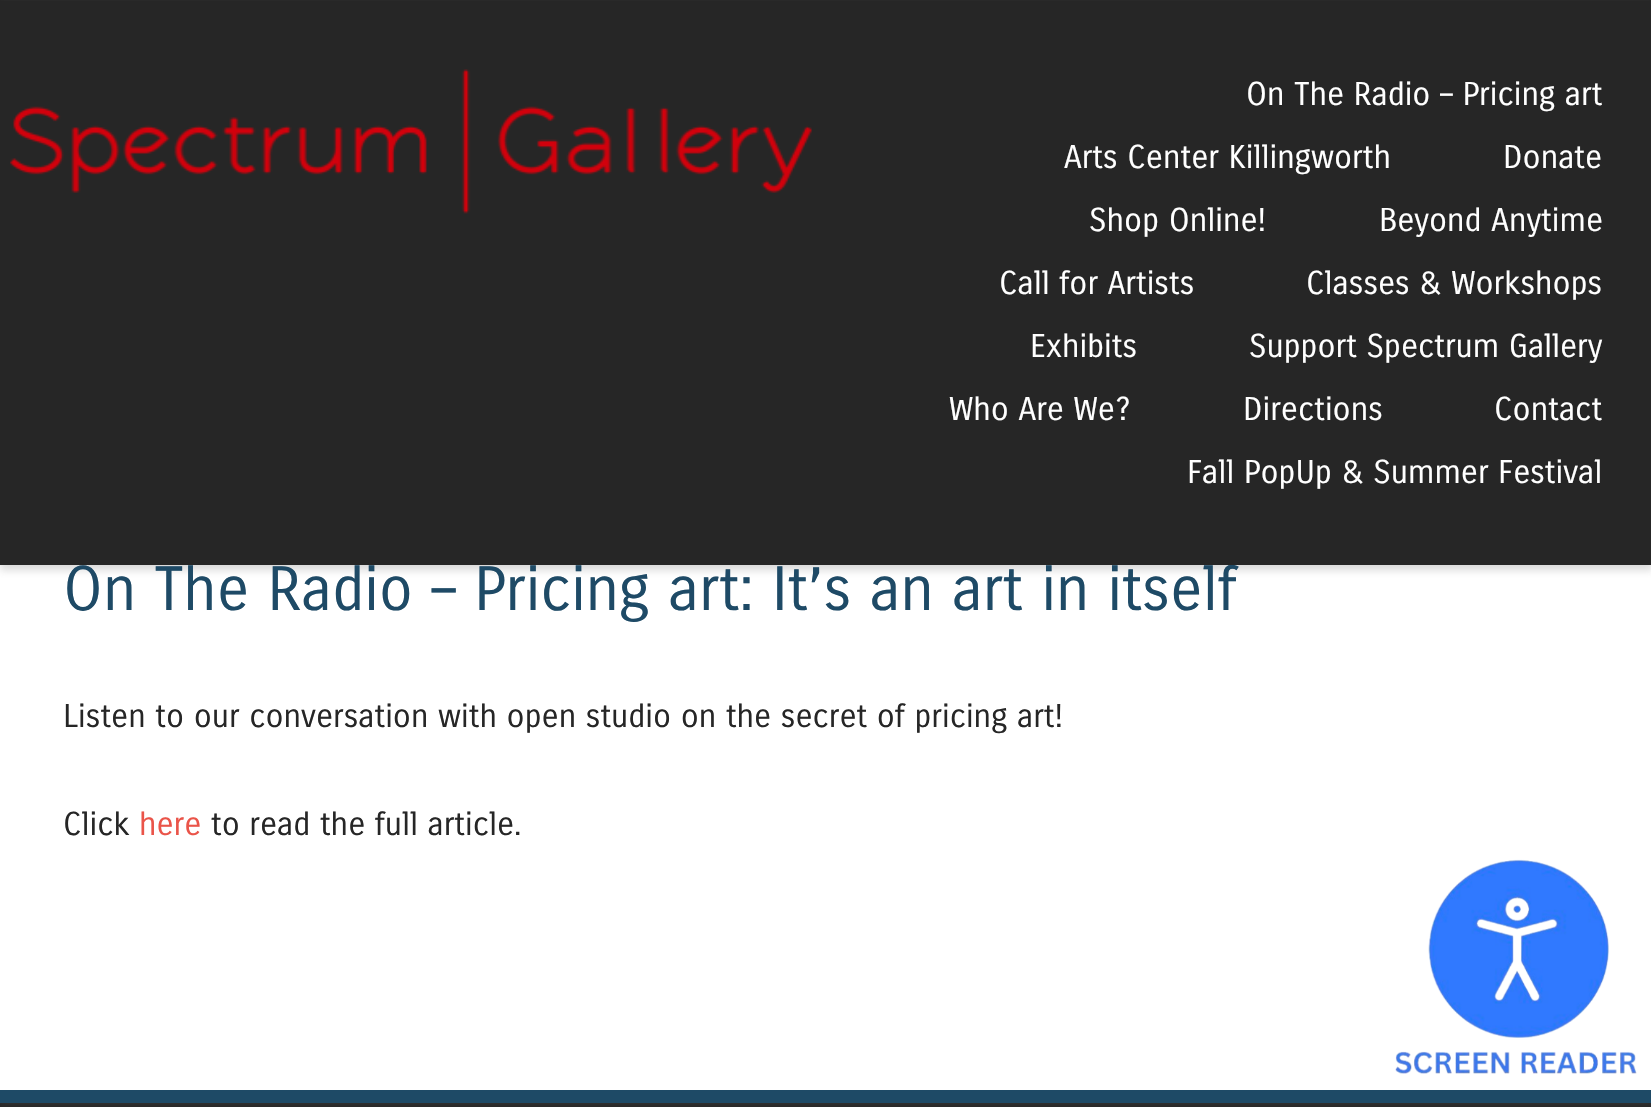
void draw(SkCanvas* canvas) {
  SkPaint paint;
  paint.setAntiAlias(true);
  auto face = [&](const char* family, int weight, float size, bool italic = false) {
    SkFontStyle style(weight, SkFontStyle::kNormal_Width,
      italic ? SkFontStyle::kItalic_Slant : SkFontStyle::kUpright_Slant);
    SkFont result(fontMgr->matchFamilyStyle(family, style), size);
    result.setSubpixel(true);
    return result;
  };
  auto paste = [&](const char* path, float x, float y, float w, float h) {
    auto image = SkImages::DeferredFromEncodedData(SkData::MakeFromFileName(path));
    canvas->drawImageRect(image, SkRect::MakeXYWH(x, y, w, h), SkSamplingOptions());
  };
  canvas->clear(0xff262626);
  paint.setColor(0x40646464);
  paint.setMaskFilter(SkMaskFilter::MakeBlur(kNormal_SkBlurStyle, 4));
  canvas->drawRect(SkRect::MakeXYWH(0, 500, 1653, 603), paint);
  paint.setMaskFilter(nullptr);
  paint.setColor(0xffffffff);
  canvas->drawRect(SkRect::MakeXYWH(0, 565, 1651, 525), paint);
  paint.setColor(0x40646464);
  paint.setMaskFilter(SkMaskFilter::MakeBlur(kNormal_SkBlurStyle, 4));
  canvas->drawRect(SkRect::MakeXYWH(0, 5, 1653, 565), paint);
  paint.setMaskFilter(nullptr);
  paint.setColor(0xff1e4a66);
  canvas->drawRect(SkRect::MakeXYWH(0, 1090, 1651, 13), paint);
  paste("img/2.png", 1395, 859, 242, 215);
  auto f0 = face("Carrois Gothic", 400, 60.75f);
  canvas->drawString("On The Radio – Pricing art: It’s an art in itself", 63, 610, f0, paint);
  paint.setColor(0xff262626);
  canvas->drawRect(SkRect::MakeXYWH(0, 1, 1651, 564), paint);
  auto f1 = face("Carrois Gothic", 400, 32);
  paint.setColor(0xffffffff);
  {
    const struct { const char* s; float x, y; } items[] = {
      {"Fall PopUp & Summer Festival", 1187, 483},
      {"Contact", 1494, 420},
      {"Directions", 1243, 420},
      {"Who Are We?", 949, 420},
      {"Support Spectrum Gallery", 1249, 357},
      {"Exhibits", 1030, 357},
      {"Classes & Workshops", 1306, 294},
      {"Call for Artists", 999, 294},
      {"Beyond Anytime", 1379, 231},
      {"Shop Online!", 1089, 231},
      {"Donate", 1503, 168},
      {"Arts Center Killingworth", 1064, 168},
      {"On The Radio – Pricing art", 1246, 105},
    };
    for (auto [s, x, y] : items) {
      canvas->drawString(s, x, y, f1, paint);
    }
  }
  paste("img/1.png", 10, 69, 802, 145);
  paint.setColor(0xff262626);
  canvas->drawString("Listen to our conversation with open studio on the secret of pricing art!", 63, 727, f1, paint);
  canvas->drawString("Click", 63, 835, f1, paint);
  paint.setColor(0xffea5449);
  canvas->drawString("here", 139, 835, f1, paint);
  paint.setColor(0xff262626);
  canvas->drawString("to read the full article.", 211, 835, f1, paint);
}
